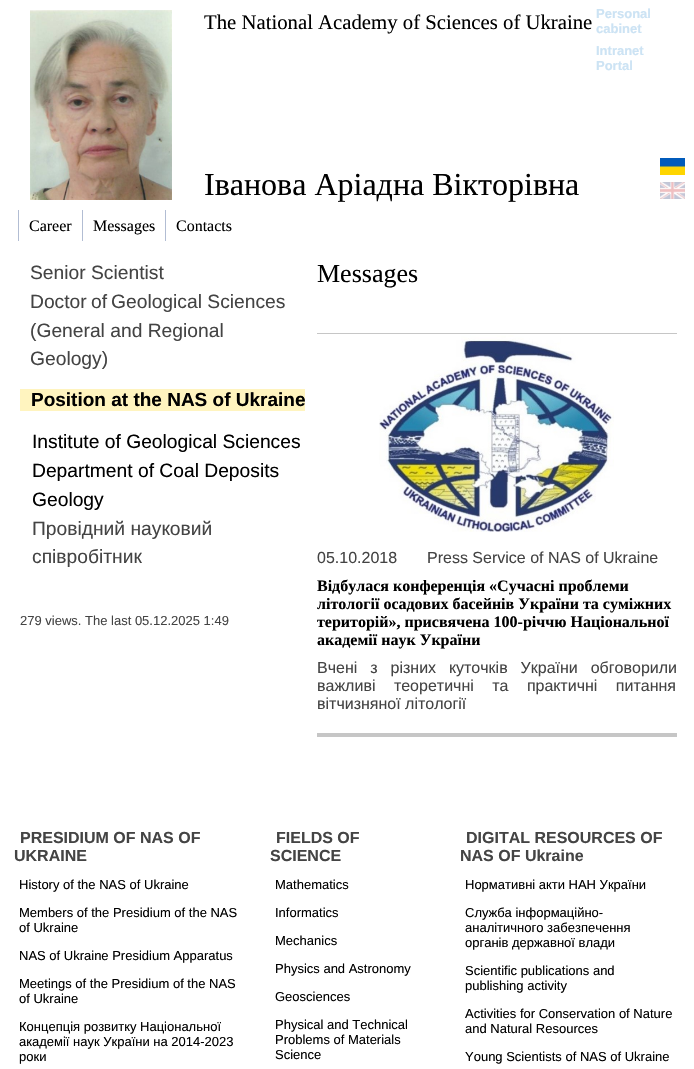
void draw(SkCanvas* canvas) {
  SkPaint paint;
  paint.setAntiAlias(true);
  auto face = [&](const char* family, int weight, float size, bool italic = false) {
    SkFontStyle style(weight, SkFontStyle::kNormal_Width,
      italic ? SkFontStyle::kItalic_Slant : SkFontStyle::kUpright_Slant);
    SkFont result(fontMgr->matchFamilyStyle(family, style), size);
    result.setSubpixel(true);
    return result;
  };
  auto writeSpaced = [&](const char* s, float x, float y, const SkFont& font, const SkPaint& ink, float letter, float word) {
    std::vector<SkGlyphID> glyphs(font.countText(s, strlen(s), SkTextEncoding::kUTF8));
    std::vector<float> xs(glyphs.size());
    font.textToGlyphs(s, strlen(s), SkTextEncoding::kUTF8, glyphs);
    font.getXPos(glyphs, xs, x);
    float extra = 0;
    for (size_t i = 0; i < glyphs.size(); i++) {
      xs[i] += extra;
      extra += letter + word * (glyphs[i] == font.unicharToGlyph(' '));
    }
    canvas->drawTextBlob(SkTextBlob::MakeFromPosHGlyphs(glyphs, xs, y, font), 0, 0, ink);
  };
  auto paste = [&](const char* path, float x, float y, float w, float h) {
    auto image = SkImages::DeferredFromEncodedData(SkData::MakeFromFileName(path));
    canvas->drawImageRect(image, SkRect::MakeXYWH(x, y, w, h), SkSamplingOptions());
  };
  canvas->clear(0xffffffff);
  paste("img/1.png", 30, 10, 142, 190);
  paste("img/2.png", 660, 158, 25, 17);
  paste("img/3.png", 660, 182, 25, 17);
  {
    const struct { float x, y, w, h; SkColor color; } items[] = {
      {18, 210, 1, 31, 0xffb2bdd3},
      {82, 210, 1, 31, 0xffb2bdd3},
      {165, 210, 1, 31, 0xffb2bdd3},
      {20, 389, 285, 22, 0xfffff4bf},
      {317, 333, 360, 1, 0xffc6c6c6},
    };
    for (auto [x, y, w, h, color] : items) {
      paint.setColor(color);
      canvas->drawRect(SkRect::MakeXYWH(x, y, w, h), paint);
    }
  }
  paste("img/4.png", 379, 335, 235, 197);
  canvas->drawRect(SkRect::MakeXYWH(317, 733, 360, 4), paint);
  auto f0 = face("Liberation Serif", 400, 20.75f);
  paint.setColor(0xff000000);
  canvas->drawString("The National Academy of Sciences of Ukraine", 204, 29, f0, paint);
  auto f1 = face("Liberation Sans", 700, 13);
  paint.setColor(0xffcce3f4);
  {
    const struct { const char* s; float x, y; } items[] = {
      {"Personal", 596, 18},
      {"cabinet", 596, 33},
      {"Intranet", 596, 55},
      {"Portal", 596, 70},
    };
    for (auto [s, x, y] : items) {
      canvas->drawString(s, x, y, f1, paint);
    }
  }
  auto f2 = face("Liberation Serif", 400, 32);
  paint.setColor(0xff000000);
  canvas->drawString("Іванова Аріадна Вікторівна", 204, 195, f2, paint);
  auto f3 = face("Liberation Serif", 400, 16);
  {
    const struct { const char* s; float x, y; } items[] = {
      {"Career", 29, 231},
      {"Messages", 93, 231},
      {"Contacts", 176, 231},
    };
    for (auto [s, x, y] : items) {
      canvas->drawString(s, x, y, f3, paint);
    }
  }
  auto f4 = face("Liberation Sans", 400, 19.25f);
  paint.setColor(0xff444444);
  {
    const struct { const char* s; float x, y; } items[] = {
      {"Senior Scientist", 30, 279},
      {"Doctor", 30, 308},
      {"of", 91, 308},
      {"Geological Sciences", 111, 308},
      {"(General and Regional", 30, 337},
      {"Geology)", 30, 365},
    };
    for (auto [s, x, y] : items) {
      canvas->drawString(s, x, y, f4, paint);
    }
  }
  auto f5 = face("Liberation Sans", 700, 19);
  paint.setColor(0xff000000);
  canvas->drawString("Position at the NAS of Ukraine", 31, 406, f5, paint);
  {
    const struct { const char* s; float x, y; } items[] = {
      {"Institute of Geological Sciences", 32, 448},
      {"Department of Coal Deposits", 32, 477},
      {"Geology", 32, 506},
    };
    for (auto [s, x, y] : items) {
      canvas->drawString(s, x, y, f4, paint);
    }
  }
  paint.setColor(0xff444444);
  canvas->drawString("Провідний науковий", 32, 535, f4, paint);
  canvas->drawString("співробітник", 32, 563, f4, paint);
  auto f6 = face("Liberation Sans", 400, 13);
  canvas->drawString("279 views. The last 05.12.2025 1:49", 20, 625, f6, paint);
  auto f7 = face("Liberation Serif", 400, 26);
  paint.setColor(0xff000000);
  canvas->drawString("Messages", 317, 282, f7, paint);
  auto f8 = face("Liberation Sans", 400, 16);
  paint.setColor(0xff444444);
  canvas->drawString("05.10.2018", 317, 563, f8, paint);
  canvas->drawString("Press Service of NAS of Ukraine", 427, 563, f8, paint);
  auto f9 = face("Liberation Serif", 700, 16);
  paint.setColor(0xff000000);
  {
    const struct { const char* s; float x, y; } items[] = {
      {"Відбулася конференція «Сучасні проблеми", 317, 591},
      {"літології осадових басейнів України та суміжних", 317, 609},
      {"територій», присвячена 100-річчю Національної", 317, 627},
      {"академії наук України", 317, 645},
    };
    for (auto [s, x, y] : items) {
      canvas->drawString(s, x, y, f9, paint);
    }
  }
  paint.setColor(0xff444444);
  writeSpaced("Вчені з різних куточків України обговорили", 317, 673, f8, paint, 0, 8.5f);
  writeSpaced("важливі теоретичні та практичні питання", 317, 691, f8, paint, 0, 14);
  canvas->drawString("вітчизняної літології", 317, 709, f8, paint);
  auto f10 = face("Liberation Sans", 700, 16);
  canvas->drawString("PRESIDIUM OF NAS OF", 20, 843, f10, paint);
  canvas->drawString("UKRAINE", 14, 861, f10, paint);
  paint.setColor(0xff000000);
  {
    const struct { const char* s; float x, y; } items[] = {
      {"History of the NAS of Ukraine", 19, 889},
      {"Members of the Presidium of the NAS", 19, 917},
      {"of Ukraine", 19, 932},
      {"NAS of Ukraine Presidium Apparatus", 19, 960},
      {"Meetings of the Presidium of the NAS", 19, 988},
      {"of Ukraine", 19, 1003},
      {"Концепція розвитку Національної", 19, 1031},
      {"академії наук України на 2014-2023", 19, 1046},
      {"роки", 19, 1061},
    };
    for (auto [s, x, y] : items) {
      canvas->drawString(s, x, y, f6, paint);
    }
  }
  paint.setColor(0xff444444);
  canvas->drawString("FIELDS OF", 276, 843, f10, paint);
  canvas->drawString("SCIENCE", 270, 861, f10, paint);
  paint.setColor(0xff000000);
  {
    const struct { const char* s; float x, y; } items[] = {
      {"Mathematics", 275, 889},
      {"Informatics", 275, 917},
      {"Mechanics", 275, 945},
      {"Physics and Astronomy", 275, 973},
      {"Geosciences", 275, 1001},
      {"Physical and Technical", 275, 1029},
      {"Problems of Materials", 275, 1044},
      {"Science", 275, 1059},
    };
    for (auto [s, x, y] : items) {
      canvas->drawString(s, x, y, f6, paint);
    }
  }
  paint.setColor(0xff444444);
  canvas->drawString("DIGITAL RESOURCES OF", 466, 843, f10, paint);
  canvas->drawString("NAS OF Ukraine", 460, 861, f10, paint);
  paint.setColor(0xff000000);
  {
    const struct { const char* s; float x, y; } items[] = {
      {"Нормативні акти НАН України", 465, 889},
      {"Служба інформаційно-", 465, 917},
      {"аналітичного забезпечення", 465, 932},
      {"органів державної влади", 465, 947},
      {"Scientific publications and", 465, 975},
      {"publishing activity", 465, 990},
      {"Activities for Conservation of Nature", 465, 1018},
      {"and Natural Resources", 465, 1033},
      {"Young Scientists of NAS of Ukraine", 465, 1061},
    };
    for (auto [s, x, y] : items) {
      canvas->drawString(s, x, y, f6, paint);
    }
  }
}
